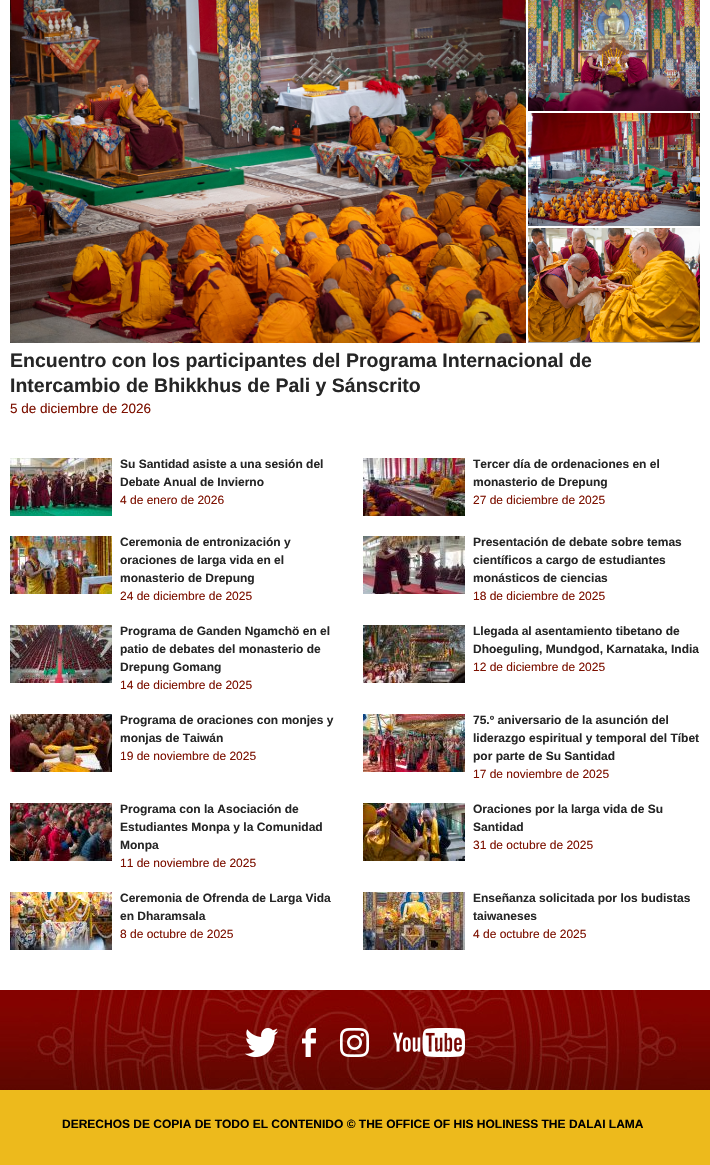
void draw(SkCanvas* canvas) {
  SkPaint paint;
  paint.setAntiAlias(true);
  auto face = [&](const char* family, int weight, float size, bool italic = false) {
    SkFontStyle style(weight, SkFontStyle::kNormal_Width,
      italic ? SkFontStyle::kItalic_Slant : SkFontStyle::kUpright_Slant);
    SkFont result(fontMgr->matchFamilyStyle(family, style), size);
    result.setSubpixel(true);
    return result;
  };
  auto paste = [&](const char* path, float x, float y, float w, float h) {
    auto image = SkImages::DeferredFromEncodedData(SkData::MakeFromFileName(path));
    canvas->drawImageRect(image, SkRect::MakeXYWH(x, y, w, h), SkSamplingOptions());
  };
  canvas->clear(0xffffffff);
  paint.setColor(0xffa6a6a6);
  canvas->drawRect(SkRect::MakeXYWH(528, 342, 172, 1), paint);
  paste("img/1.png", 10, 0, 516, 343);
  paste("img/2.png", 528, 0, 172, 111);
  paste("img/3.png", 528, 113, 172, 113);
  paste("img/4.png", 528, 228, 172, 114);
  paste("img/5.png", 10, 458, 102, 58);
  paste("img/6.png", 363, 458, 102, 58);
  paste("img/7.png", 10, 536, 102, 58);
  paste("img/8.png", 363, 536, 102, 58);
  paste("img/9.png", 10, 625, 102, 58);
  paste("img/10.png", 363, 625, 102, 58);
  paste("img/11.png", 10, 714, 102, 58);
  paste("img/12.png", 363, 714, 102, 58);
  paste("img/13.png", 10, 803, 102, 58);
  paste("img/14.png", 363, 803, 102, 58);
  paste("img/15.png", 10, 892, 102, 58);
  paste("img/16.png", 363, 892, 102, 58);
  paste("img/17.png", 0, 990, 710, 100);
  paste("img/18.png", 19, 990, 673, 100);
  paste("img/19.png", 245, 1028, 33, 29);
  paste("img/20.png", 302, 1028, 14, 29);
  paste("img/21.png", 340, 1028, 29, 29);
  paste("img/22.png", 393, 1028, 72, 29);
  paint.setColor(0xffedba1c);
  canvas->drawRect(SkRect::MakeXYWH(0, 1090, 710, 75), paint);
  auto f0 = face("Liberation Sans", 700, 19.5f);
  paint.setColor(0xff262626);
  canvas->drawString("Encuentro con los participantes del Programa Internacional de", 10, 367, f0, paint);
  canvas->drawString("Intercambio de Bhikkhus de Pali y Sánscrito", 10, 392, f0, paint);
  auto f1 = face("Liberation Sans", 400, 13.5f);
  paint.setColor(0xff7c1000);
  canvas->drawString("5 de diciembre de 2026", 10, 413, f1, paint);
  auto f2 = face("Liberation Sans", 700, 12);
  paint.setColor(0xff262626);
  canvas->drawString("Su Santidad asiste a una sesión del", 120, 468, f2, paint);
  canvas->drawString("Debate Anual de Invierno", 120, 486, f2, paint);
  auto f3 = face("Liberation Sans", 400, 12);
  paint.setColor(0xff7c1000);
  canvas->drawString("4 de enero de 2026", 120, 504, f3, paint);
  paint.setColor(0xff262626);
  canvas->drawString("Tercer día de ordenaciones en el", 473, 468, f2, paint);
  canvas->drawString("monasterio de Drepung", 473, 486, f2, paint);
  paint.setColor(0xff7c1000);
  canvas->drawString("27 de diciembre de 2025", 473, 504, f3, paint);
  paint.setColor(0xff262626);
  {
    const struct { const char* s; float x, y; } items[] = {
      {"Ceremonia de entronización y", 120, 546},
      {"oraciones de larga vida en el", 120, 564},
      {"monasterio de Drepung", 120, 582},
    };
    for (auto [s, x, y] : items) {
      canvas->drawString(s, x, y, f2, paint);
    }
  }
  paint.setColor(0xff7c1000);
  canvas->drawString("24 de diciembre de 2025", 120, 600, f3, paint);
  paint.setColor(0xff262626);
  {
    const struct { const char* s; float x, y; } items[] = {
      {"Presentación de debate sobre temas", 473, 546},
      {"científicos a cargo de estudiantes", 473, 564},
      {"monásticos de ciencias", 473, 582},
    };
    for (auto [s, x, y] : items) {
      canvas->drawString(s, x, y, f2, paint);
    }
  }
  paint.setColor(0xff7c1000);
  canvas->drawString("18 de diciembre de 2025", 473, 600, f3, paint);
  paint.setColor(0xff262626);
  {
    const struct { const char* s; float x, y; } items[] = {
      {"Programa de Ganden Ngamchö en el", 120, 635},
      {"patio de debates del monasterio de", 120, 653},
      {"Drepung Gomang", 120, 671},
    };
    for (auto [s, x, y] : items) {
      canvas->drawString(s, x, y, f2, paint);
    }
  }
  paint.setColor(0xff7c1000);
  canvas->drawString("14 de diciembre de 2025", 120, 689, f3, paint);
  paint.setColor(0xff262626);
  canvas->drawString("Llegada al asentamiento tibetano de", 473, 635, f2, paint);
  canvas->drawString("Dhoeguling, Mundgod, Karnataka, India", 473, 653, f2, paint);
  paint.setColor(0xff7c1000);
  canvas->drawString("12 de diciembre de 2025", 473, 671, f3, paint);
  paint.setColor(0xff262626);
  canvas->drawString("Programa de oraciones con monjes y", 120, 724, f2, paint);
  canvas->drawString("monjas de Taiwán", 120, 742, f2, paint);
  paint.setColor(0xff7c1000);
  canvas->drawString("19 de noviembre de 2025", 120, 760, f3, paint);
  paint.setColor(0xff262626);
  {
    const struct { const char* s; float x, y; } items[] = {
      {"75.º aniversario de la asunción del", 473, 724},
      {"liderazgo espiritual y temporal del Tíbet", 473, 742},
      {"por parte de Su Santidad", 473, 760},
    };
    for (auto [s, x, y] : items) {
      canvas->drawString(s, x, y, f2, paint);
    }
  }
  paint.setColor(0xff7c1000);
  canvas->drawString("17 de noviembre de 2025", 473, 778, f3, paint);
  paint.setColor(0xff262626);
  {
    const struct { const char* s; float x, y; } items[] = {
      {"Programa con la Asociación de", 120, 813},
      {"Estudiantes Monpa y la Comunidad", 120, 831},
      {"Monpa", 120, 849},
    };
    for (auto [s, x, y] : items) {
      canvas->drawString(s, x, y, f2, paint);
    }
  }
  paint.setColor(0xff7c1000);
  canvas->drawString("11 de noviembre de 2025", 120, 867, f3, paint);
  paint.setColor(0xff262626);
  canvas->drawString("Oraciones por la larga vida de Su", 473, 813, f2, paint);
  canvas->drawString("Santidad", 473, 831, f2, paint);
  paint.setColor(0xff7c1000);
  canvas->drawString("31 de octubre de 2025", 473, 849, f3, paint);
  paint.setColor(0xff262626);
  canvas->drawString("Ceremonia de Ofrenda de Larga Vida", 120, 902, f2, paint);
  canvas->drawString("en Dharamsala", 120, 920, f2, paint);
  paint.setColor(0xff7c1000);
  canvas->drawString("8 de octubre de 2025", 120, 938, f3, paint);
  paint.setColor(0xff262626);
  canvas->drawString("Enseñanza solicitada por los budistas", 473, 902, f2, paint);
  canvas->drawString("taiwaneses", 473, 920, f2, paint);
  paint.setColor(0xff7c1000);
  canvas->drawString("4 de octubre de 2025", 473, 938, f3, paint);
  paint.setColor(0xff000000);
  canvas->drawString("DERECHOS DE COPIA DE TODO EL CONTENIDO © THE OFFICE OF HIS HOLINESS THE DALAI LAMA", 62, 1128, f2, paint);
}
